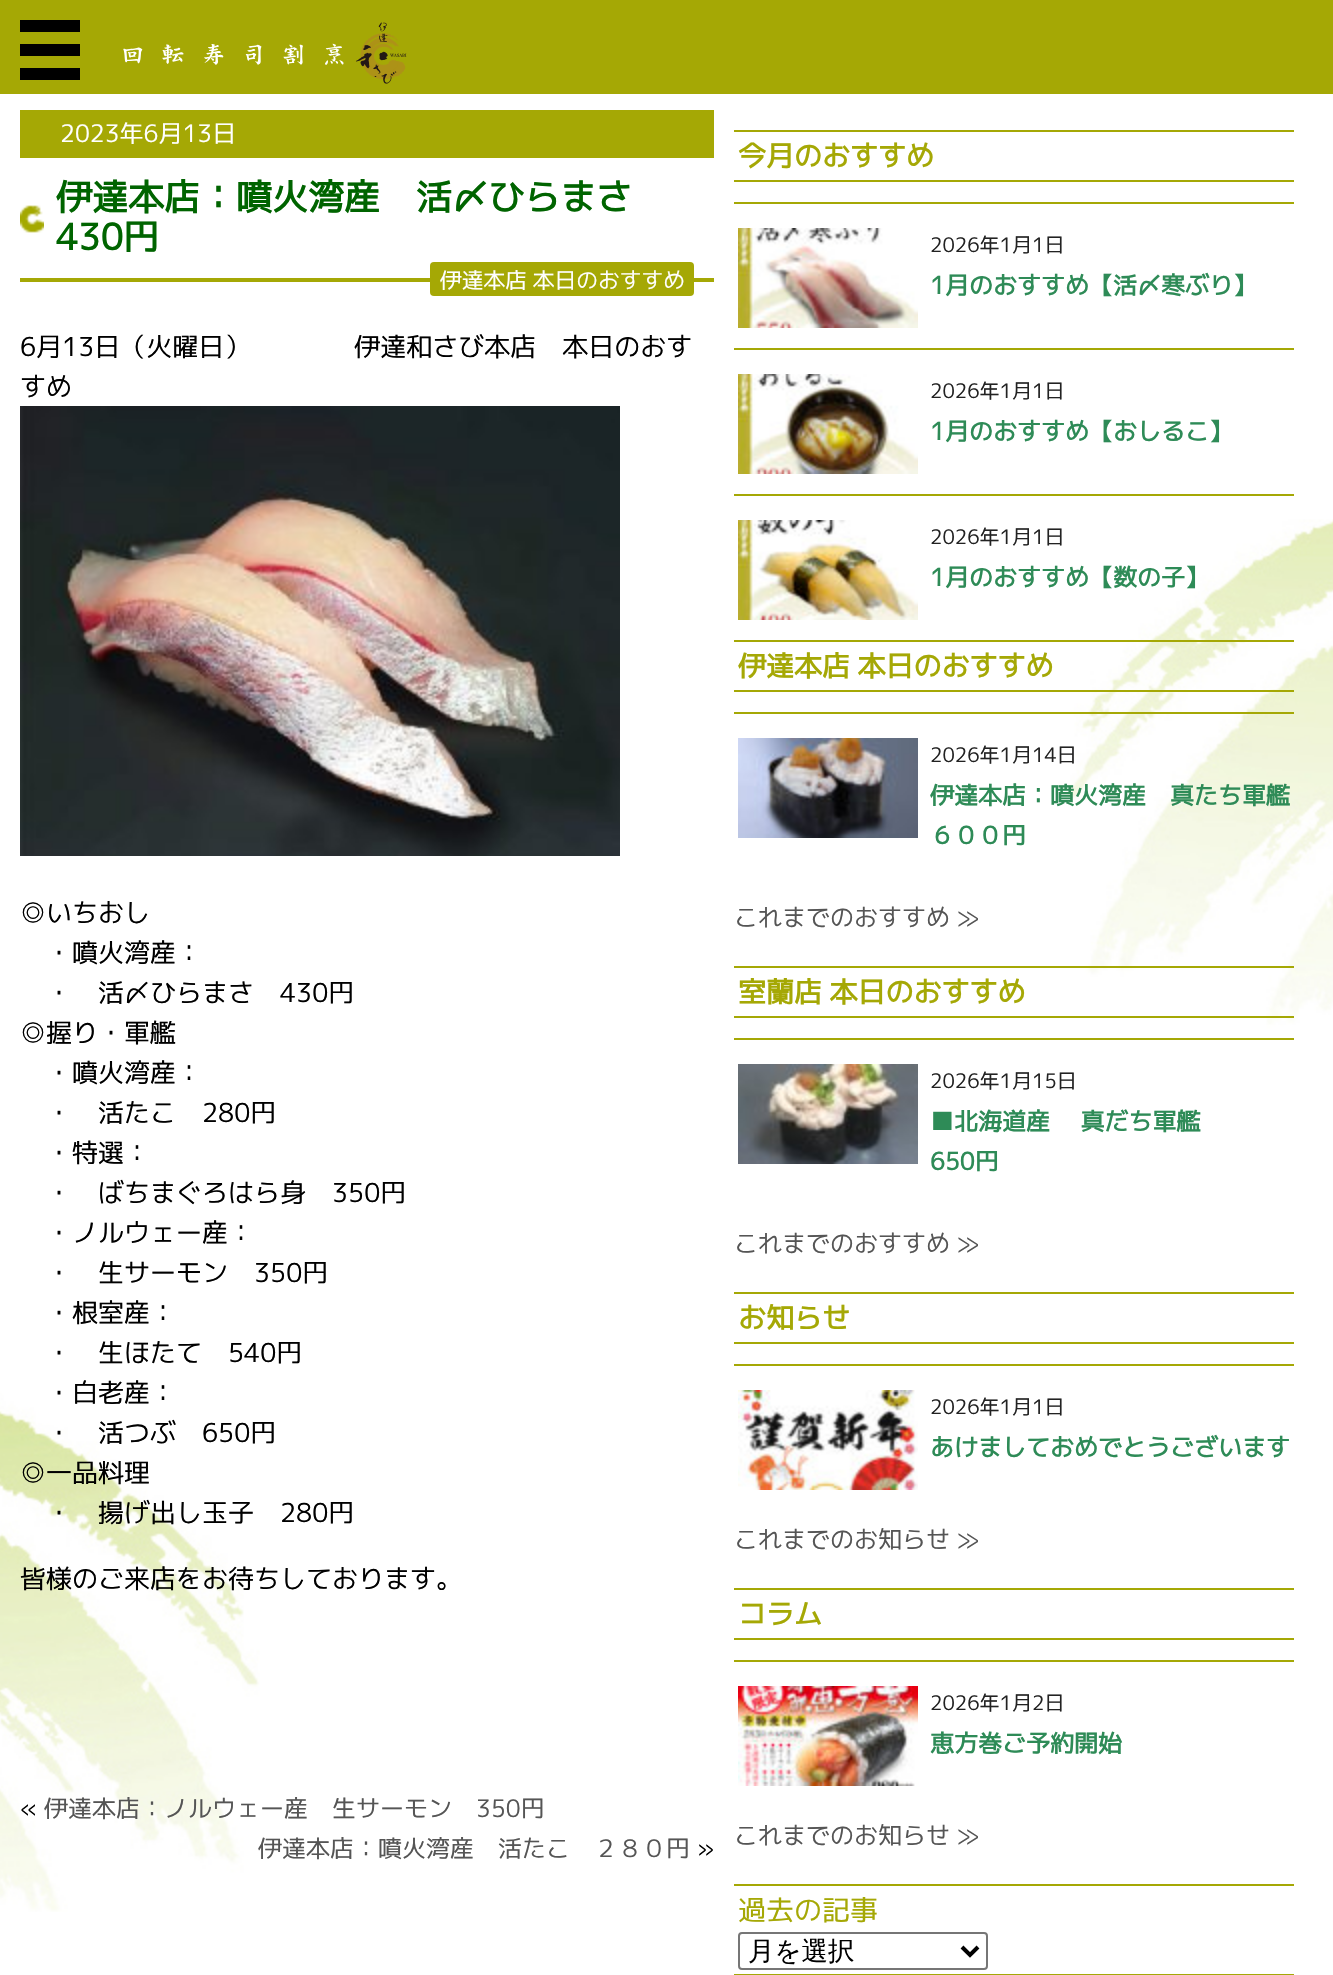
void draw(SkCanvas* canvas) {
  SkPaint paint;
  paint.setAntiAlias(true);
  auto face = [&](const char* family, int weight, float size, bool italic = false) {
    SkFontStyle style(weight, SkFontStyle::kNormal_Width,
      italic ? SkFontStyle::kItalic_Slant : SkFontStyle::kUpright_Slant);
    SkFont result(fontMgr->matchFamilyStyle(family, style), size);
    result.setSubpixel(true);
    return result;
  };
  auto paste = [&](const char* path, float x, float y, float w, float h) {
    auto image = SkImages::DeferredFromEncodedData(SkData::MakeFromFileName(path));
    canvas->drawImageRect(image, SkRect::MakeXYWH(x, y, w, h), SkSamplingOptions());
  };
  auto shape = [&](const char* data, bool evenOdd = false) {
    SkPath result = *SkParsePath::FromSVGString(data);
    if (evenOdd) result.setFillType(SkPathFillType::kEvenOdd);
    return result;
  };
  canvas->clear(0xffffffff);
  paste("img/1.png", 0, 519, 1333, 1393);
  {
    const struct { float x, y, w, h; SkColor color; } items[] = {
      {0, 0, 1333, 94, 0xffa5a805},
      {20, 44, 60, 12, 0xff000000},
      {20, 20, 60, 12, 0xff000000},
      {20, 68, 60, 12, 0xff000000},
    };
    for (auto [x, y, w, h, color] : items) {
      paint.setColor(color);
      canvas->drawRect(SkRect::MakeXYWH(x, y, w, h), paint);
    }
  }
  paste("img/2.png", 123, 22, 284, 62);
  paint.setColor(0xffa5a805);
  canvas->drawRect(SkRect::MakeXYWH(20, 110, 694, 48), paint);
  paste("img/3.png", 20, 205, 24, 28);
  canvas->drawRect(SkRect::MakeXYWH(20, 278, 694, 4), paint);
  canvas->drawRoundRect(SkRect::MakeXYWH(430, 262, 264, 34), 4, 4, paint);
  paste("img/4.png", 20, 406, 600, 450);
  {
    const struct { float x, y, w, h; SkColor color; } items[] = {
      {734, 130, 560, 2, 0xffa5a805},
      {734, 180, 560, 2, 0xffa5a805},
      {734, 202, 560, 2, 0xffa5a805},
    };
    for (auto [x, y, w, h, color] : items) {
      paint.setColor(color);
      canvas->drawRect(SkRect::MakeXYWH(x, y, w, h), paint);
    }
  }
  paste("img/5.png", 738, 228, 180, 100);
  canvas->drawRect(SkRect::MakeXYWH(734, 348, 560, 2), paint);
  paste("img/6.png", 738, 374, 180, 100);
  canvas->drawRect(SkRect::MakeXYWH(734, 494, 560, 2), paint);
  paste("img/7.png", 738, 520, 180, 100);
  {
    const struct { float x, y, w, h; SkColor color; } items[] = {
      {734, 640, 560, 2, 0xffa5a805},
      {734, 690, 560, 2, 0xffa5a805},
      {734, 712, 560, 2, 0xffa5a805},
    };
    for (auto [x, y, w, h, color] : items) {
      paint.setColor(color);
      canvas->drawRect(SkRect::MakeXYWH(x, y, w, h), paint);
    }
  }
  paste("img/8.png", 738, 738, 180, 100);
  {
    const struct { float x, y, w, h; SkColor color; } items[] = {
      {734, 966, 560, 2, 0xffa5a805},
      {734, 1016, 560, 2, 0xffa5a805},
      {734, 1038, 560, 2, 0xffa5a805},
    };
    for (auto [x, y, w, h, color] : items) {
      paint.setColor(color);
      canvas->drawRect(SkRect::MakeXYWH(x, y, w, h), paint);
    }
  }
  paste("img/9.png", 738, 1064, 180, 100);
  {
    const struct { float x, y, w, h; SkColor color; } items[] = {
      {734, 1292, 560, 2, 0xffa5a805},
      {734, 1342, 560, 2, 0xffa5a805},
      {734, 1364, 560, 2, 0xffa5a805},
    };
    for (auto [x, y, w, h, color] : items) {
      paint.setColor(color);
      canvas->drawRect(SkRect::MakeXYWH(x, y, w, h), paint);
    }
  }
  paste("img/10.png", 738, 1390, 180, 100);
  {
    const struct { float x, y, w, h; SkColor color; } items[] = {
      {734, 1588, 560, 2, 0xffa5a805},
      {734, 1638, 560, 2, 0xffa5a805},
      {734, 1660, 560, 2, 0xffa5a805},
    };
    for (auto [x, y, w, h, color] : items) {
      paint.setColor(color);
      canvas->drawRect(SkRect::MakeXYWH(x, y, w, h), paint);
    }
  }
  paste("img/11.png", 738, 1686, 180, 100);
  canvas->drawRect(SkRect::MakeXYWH(734, 1884, 560, 2), paint);
  canvas->drawRect(SkRect::MakeXYWH(734, 1974, 560, 1), paint);
  paint.setStroke(true);
  paint.setStrokeWidth(2);
  paint.setColor(0xff767676);
  canvas->drawRoundRect(SkRect::MakeXYWH(739, 1933, 248, 36), 3, 3, paint);
  paint.setStrokeWidth(4);
  paint.setColor(0xff000000);
  canvas->drawPath(shape("M962 1947L970 1955L978 1947"), paint);
  auto f0 = face("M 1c", 400, 24);
  paint.setStroke(false);
  paint.setColor(0xffffffff);
  canvas->drawString("2023年6月13日", 60, 142, f0, paint);
  auto f1 = face("M 1c", 700, 36);
  paint.setColor(0xff006400);
  canvas->drawString("伊達本店：噴火湾産　活〆ひらまさ", 56, 210, f1, paint);
  canvas->drawString("430円", 56, 250, f1, paint);
  auto f2 = face("M 1c", 400, 21.75f);
  paint.setColor(0xffffffff);
  canvas->drawString("伊達本店 本日のおすすめ", 440, 288, f2, paint);
  auto f3 = face("M 1c", 400, 26);
  paint.setColor(0xff000000);
  {
    const struct { const char* s; float x, y; } items[] = {
      {"6月13日（火曜日）　　　　伊達和さび本店　本日のおす", 20, 356},
      {"すめ", 20, 396},
      {"◎いちおし", 20, 922},
      {"・噴火湾産：", 46, 962},
      {"・　活〆ひらまさ　430円", 46, 1002},
      {"◎握り・軍艦", 20, 1042},
      {"・噴火湾産：", 46, 1082},
      {"・　活たこ　280円", 46, 1122},
      {"・特選：", 46, 1162},
      {"・　ばちまぐろはら身　350円", 46, 1202},
      {"・ノルウェー産：", 46, 1242},
      {"・　生サーモン　350円", 46, 1282},
      {"・根室産：", 46, 1322},
      {"・　生ほたて　540円", 46, 1362},
      {"・白老産：", 46, 1402},
      {"・　活つぶ　650円", 46, 1442},
      {"◎一品料理", 20, 1482},
      {"・　揚げ出し玉子　280円", 46, 1522},
      {"皆様のご来店をお待ちしております。", 20, 1588},
    };
    for (auto [s, x, y] : items) {
      canvas->drawString(s, x, y, f3, paint);
    }
  }
  canvas->drawString("«", 20, 1817, f0, paint);
  paint.setColor(0xff555555);
  canvas->drawString("伊達本店：ノルウェー産　生サーモン　350円", 44, 1817, f0, paint);
  canvas->drawString("伊達本店：噴火湾産　活たこ　２８０円", 258, 1857, f0, paint);
  paint.setColor(0xff000000);
  canvas->drawString("»", 697, 1857, f0, paint);
  auto f4 = face("M 1c", 700, 28);
  paint.setColor(0xffa5a805);
  canvas->drawString("今月のおすすめ", 738, 166, f4, paint);
  auto f5 = face("M 1c", 400, 20);
  paint.setColor(0xff222222);
  canvas->drawString("2026年1月1日", 930, 252, f5, paint);
  auto f6 = face("M 1c", 700, 24);
  paint.setColor(0xff2e8b57);
  canvas->drawString("1月のおすすめ【活〆寒ぶり】", 930, 294, f6, paint);
  paint.setColor(0xff222222);
  canvas->drawString("2026年1月1日", 930, 398, f5, paint);
  paint.setColor(0xff2e8b57);
  canvas->drawString("1月のおすすめ【おしるこ】", 930, 440, f6, paint);
  paint.setColor(0xff222222);
  canvas->drawString("2026年1月1日", 930, 544, f5, paint);
  paint.setColor(0xff2e8b57);
  canvas->drawString("1月のおすすめ【数の子】", 930, 586, f6, paint);
  paint.setColor(0xffa5a805);
  canvas->drawString("伊達本店 本日のおすすめ", 738, 676, f4, paint);
  paint.setColor(0xff222222);
  canvas->drawString("2026年1月14日", 930, 762, f5, paint);
  paint.setColor(0xff2e8b57);
  canvas->drawString("伊達本店：噴火湾産　真たち軍艦", 930, 804, f6, paint);
  canvas->drawString("６００円", 930, 844, f6, paint);
  paint.setColor(0xff555555);
  canvas->drawString("これまでのおすすめ ≫", 734, 926, f0, paint);
  paint.setColor(0xffa5a805);
  canvas->drawString("室蘭店 本日のおすすめ", 738, 1002, f4, paint);
  paint.setColor(0xff222222);
  canvas->drawString("2026年1月15日", 930, 1088, f5, paint);
  paint.setColor(0xff2e8b57);
  canvas->drawString("■北海道産　 真だち軍艦", 930, 1130, f6, paint);
  canvas->drawString("650円", 930, 1170, f6, paint);
  paint.setColor(0xff555555);
  canvas->drawString("これまでのおすすめ ≫", 734, 1252, f0, paint);
  paint.setColor(0xffa5a805);
  canvas->drawString("お知らせ", 738, 1328, f4, paint);
  paint.setColor(0xff222222);
  canvas->drawString("2026年1月1日", 930, 1414, f5, paint);
  paint.setColor(0xff2e8b57);
  canvas->drawString("あけましておめでとうございます", 930, 1456, f6, paint);
  paint.setColor(0xff555555);
  canvas->drawString("これまでのお知らせ ≫", 734, 1548, f0, paint);
  paint.setColor(0xffa5a805);
  canvas->drawString("コラム", 738, 1624, f4, paint);
  paint.setColor(0xff222222);
  canvas->drawString("2026年1月2日", 930, 1710, f5, paint);
  paint.setColor(0xff2e8b57);
  canvas->drawString("恵方巻ご予約開始", 930, 1752, f6, paint);
  paint.setColor(0xff555555);
  canvas->drawString("これまでのお知らせ ≫", 734, 1844, f0, paint);
  auto f7 = face("M 1c", 400, 28);
  paint.setColor(0xffa5a805);
  canvas->drawString("過去の記事", 738, 1920, f7, paint);
  auto f8 = face("WenQuanYi Zen Hei", 500, 26.5f);
  paint.setColor(0xff000000);
  canvas->drawString("月を選択", 748, 1960, f8, paint);
}
